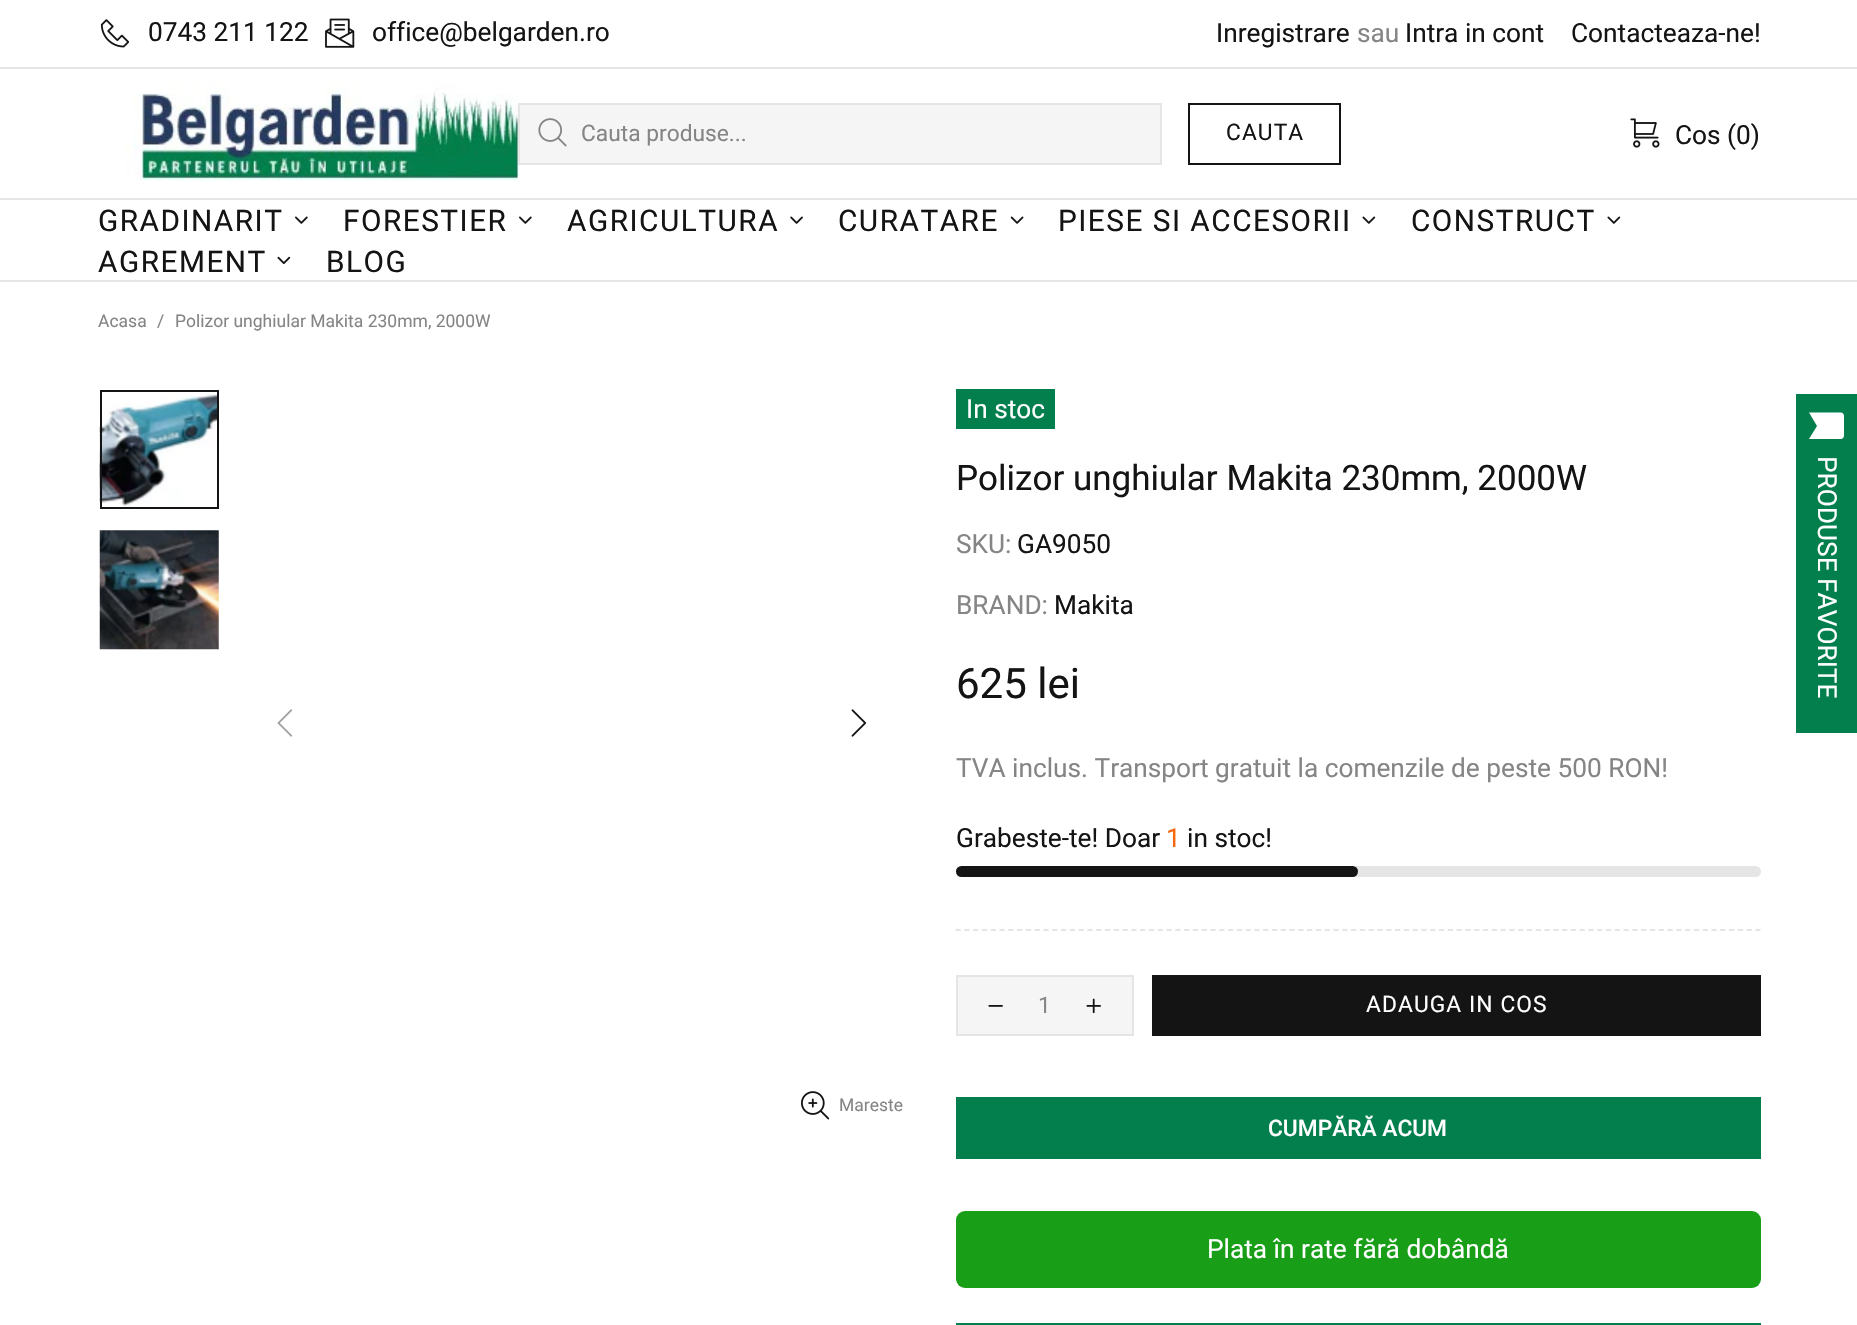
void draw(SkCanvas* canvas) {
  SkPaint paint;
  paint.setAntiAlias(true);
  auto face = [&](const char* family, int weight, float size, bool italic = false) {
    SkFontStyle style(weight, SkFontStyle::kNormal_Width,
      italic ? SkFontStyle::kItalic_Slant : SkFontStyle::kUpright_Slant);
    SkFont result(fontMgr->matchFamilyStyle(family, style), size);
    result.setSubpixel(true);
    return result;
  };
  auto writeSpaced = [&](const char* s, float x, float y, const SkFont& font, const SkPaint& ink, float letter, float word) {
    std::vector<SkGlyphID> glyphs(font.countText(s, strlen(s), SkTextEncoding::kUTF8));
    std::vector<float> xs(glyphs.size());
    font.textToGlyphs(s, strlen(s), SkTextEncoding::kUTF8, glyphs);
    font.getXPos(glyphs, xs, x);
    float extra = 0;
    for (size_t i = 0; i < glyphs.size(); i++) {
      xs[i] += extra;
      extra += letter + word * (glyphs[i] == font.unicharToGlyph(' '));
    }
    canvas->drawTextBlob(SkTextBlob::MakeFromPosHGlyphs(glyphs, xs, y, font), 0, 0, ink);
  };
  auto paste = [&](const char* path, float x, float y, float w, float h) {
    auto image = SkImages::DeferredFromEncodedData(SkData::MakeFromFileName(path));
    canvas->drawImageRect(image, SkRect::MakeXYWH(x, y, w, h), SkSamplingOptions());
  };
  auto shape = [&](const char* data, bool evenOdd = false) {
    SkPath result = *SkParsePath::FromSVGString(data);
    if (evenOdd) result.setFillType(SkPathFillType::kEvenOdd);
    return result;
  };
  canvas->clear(0xffffffff);
  paint.setColor(0xffe5e5e5);
  canvas->drawRect(SkRect::MakeXYWH(0, 67, 1857, 2), paint);
  paste("img/1.png", 100, 19, 30, 29);
  paste("img/2.png", 325, 18, 30, 30);
  canvas->drawRect(SkRect::MakeXYWH(0, 198, 1857, 2), paint);
  paste("img/3.png", 125, 83, 395, 98);
  paint.setColor(0xfff5f5f5);
  canvas->drawRect(SkRect::MakeXYWH(519, 104, 642, 60), paint);
  paint.setStroke(true);
  paint.setStrokeWidth(2);
  paint.setColor(0xffe5e5e5);
  canvas->drawRect(SkRect::MakeXYWH(519, 104, 642, 60), paint);
  paste("img/4.png", 538, 118, 29, 29);
  paint.setColor(0xff141414);
  canvas->drawRect(SkRect::MakeXYWH(1189, 104, 151, 60), paint);
  paste("img/5.png", 1630, 118, 30, 30);
  paint.setStroke(false);
  paint.setColor(0xffe5e5e5);
  canvas->drawRect(SkRect::MakeXYWH(0, 280, 1857, 2), paint);
  paste("img/6.png", 295, 216, 13, 8);
  paste("img/6.png", 519, 216, 13, 8);
  paste("img/7.png", 790, 216, 13, 8);
  paste("img/8.png", 1010, 216, 14, 8);
  paste("img/9.png", 1362, 216, 14, 8);
  paste("img/9.png", 1607, 216, 14, 8);
  paste("img/10.png", 277, 256, 14, 8);
  paste("img/11.png", 99, 394, 118, 113);
  paint.setStroke(true);
  paint.setColor(0xff141414);
  canvas->drawRect(SkRect::MakeXYWH(101, 391, 117, 117), paint);
  paste("img/12.png", 99, 530, 120, 120);
  paste("img/13.png", 277, 709, 16, 28);
  paste("img/14.png", 851, 709, 15, 28);
  paste("img/15.png", 801, 1091, 29, 29);
  paint.setStroke(false);
  paint.setColor(0xff037f4d);
  canvas->drawRect(SkRect::MakeXYWH(956, 389, 99, 40), paint);
  paint.setColor(0xffe5e5e5);
  canvas->drawRoundRect(SkRect::MakeXYWH(956, 866, 805, 11), 5.5f, 5.5f, paint);
  paint.setColor(0xff141414);
  canvas->drawRoundRect(SkRect::MakeXYWH(956, 866, 402, 11), 5.5f, 5.5f, paint);
  paint.setStroke(true);
  paint.setStrokeWidth(1.8f);
  paint.setColor(0xffe5e5e5);
  paint.setPathEffect(SkDashPathEffect::Make({{5.25f, 3.54f}}, 0));
  canvas->drawPath(shape("M955.5 930H1760.5"), paint);
  paint.setPathEffect(nullptr);
  paint.setStroke(false);
  paint.setColor(0xfff5f5f5);
  canvas->drawRect(SkRect::MakeXYWH(957, 976, 176, 59), paint);
  paint.setStroke(true);
  paint.setStrokeWidth(2);
  paint.setColor(0xffe5e5e5);
  canvas->drawRect(SkRect::MakeXYWH(957, 976, 176, 59), paint);
  paste("img/16.png", 988, 1005, 15, 2);
  paste("img/17.png", 1086, 998, 15, 16);
  paint.setStroke(false);
  paint.setColor(0xff141414);
  canvas->drawRect(SkRect::MakeXYWH(1152, 975, 609, 61), paint);
  paint.setColor(0xff037f4d);
  canvas->drawRect(SkRect::MakeXYWH(956, 1097, 805, 62), paint);
  paint.setColor(0xff199e18);
  canvas->drawRoundRect(SkRect::MakeXYWH(956, 1211, 805, 77), 9, 9, paint);
  paint.setStroke(true);
  paint.setColor(0xff037f4d);
  canvas->drawRect(SkRect::MakeXYWH(957, 1324, 803, 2), paint);
  paint.setStroke(false);
  canvas->drawRect(SkRect::MakeXYWH(1796, 394, 61, 339), paint);
  paint.setColor(0xffffffff);
  canvas->drawPath(shape("M1809 412.5H1841C1842.5 412.5 1844 414 1844 416V435.5C1844 437.5 1842.5 439 1841 439H1809L1817 426Z"), paint);
  auto f0 = face("Roboto", 400, 26.25f);
  paint.setColor(0xff141414);
  {
    const struct { const char* s; float x, y; } items[] = {
      {"0743 211 122", 148, 41},
      {"office@belgarden.ro", 372, 41},
      {"Inregistrare", 1216, 42},
    };
    for (auto [s, x, y] : items) {
      canvas->drawString(s, x, y, f0, paint);
    }
  }
  paint.setColor(0xff858585);
  canvas->drawString("sau", 1357, 42, f0, paint);
  paint.setColor(0xff141414);
  canvas->drawString("Intra in cont", 1405, 42, f0, paint);
  canvas->drawString("Contacteaza-ne!", 1571, 42, f0, paint);
  auto f1 = face("Roboto", 400, 22.75f);
  paint.setColor(0xff858585);
  canvas->drawString("Cauta produse...", 581, 141, f1, paint);
  paint.setColor(0xff141414);
  writeSpaced("CAUTA", 1226, 140, f1, paint, 1.1f, 0);
  canvas->drawString("Cos (0)", 1675, 144, f0, paint);
  auto f2 = face("Roboto", 400, 29.75f);
  {
    const struct { const char* s; float x, y; } items[] = {
      {"GRADINARIT", 98, 231},
      {"FORESTIER", 343, 231},
      {"AGRICULTURA", 567, 231},
      {"CURATARE", 838, 231},
      {"PIESE SI ACCESORII", 1058, 231},
      {"CONSTRUCT", 1411, 231},
      {"AGREMENT", 98, 272},
      {"BLOG", 326, 272},
    };
    for (auto [s, x, y] : items) {
      writeSpaced(s, x, y, f2, paint, 1.5f, 0);
    }
  }
  auto f3 = face("Roboto", 400, 17.5f);
  paint.setColor(0xff858585);
  {
    const struct { const char* s; float x, y; } items[] = {
      {"Acasa", 98, 327},
      {"/", 157, 327},
      {"Polizor unghiular Makita 230mm, 2000W", 175, 327},
      {"Mareste", 839, 1111},
    };
    for (auto [s, x, y] : items) {
      canvas->drawString(s, x, y, f3, paint);
    }
  }
  paint.setColor(0xffffffff);
  canvas->drawString("In stoc", 966, 418, f0, paint);
  auto f4 = face("Roboto", 400, 35);
  paint.setColor(0xff141414);
  canvas->drawString("Polizor unghiular Makita 230mm, 2000W", 956, 490, f4, paint);
  paint.setColor(0xff858585);
  canvas->drawString("SKU:", 956, 553, f0, paint);
  paint.setColor(0xff141414);
  canvas->drawString("GA9050", 1017, 553, f0, paint);
  paint.setColor(0xff858585);
  canvas->drawString("BRAND:", 956, 614, f0, paint);
  paint.setColor(0xff141414);
  canvas->drawString("Makita", 1054, 614, f0, paint);
  auto f5 = face("Roboto", 400, 42);
  canvas->drawString("625 lei", 956, 698, f5, paint);
  paint.setColor(0xff858585);
  canvas->drawString("TVA inclus. Transport gratuit la comenzile de peste 500 RON!", 956, 777, f0, paint);
  paint.setColor(0xff141414);
  canvas->drawString("Grabeste-te! Doar", 956, 847, f0, paint);
  paint.setColor(0xfff6680f);
  canvas->drawString("1", 1166, 847, f0, paint);
  paint.setColor(0xff141414);
  canvas->drawString("in stoc!", 1187, 847, f0, paint);
  paint.setColor(0xff858585);
  canvas->drawString("1", 1038, 1013, f1, paint);
  paint.setColor(0xffffffff);
  writeSpaced("ADAUGA IN COS", 1366, 1012, f1, paint, 1.1f, 0);
  auto f6 = face("Roboto", 500, 22.75f);
  canvas->drawString("CUMPĂRĂ ACUM", 1268, 1136, f6, paint);
  canvas->drawString("Plata în rate fără dobândă", 1207, 1258, f0, paint);
  canvas->save();
  canvas->rotate(90, 1818, 456);
  canvas->drawString("PRODUSE FAVORITE", 1818, 456, f0, paint);
  canvas->restore();
}
